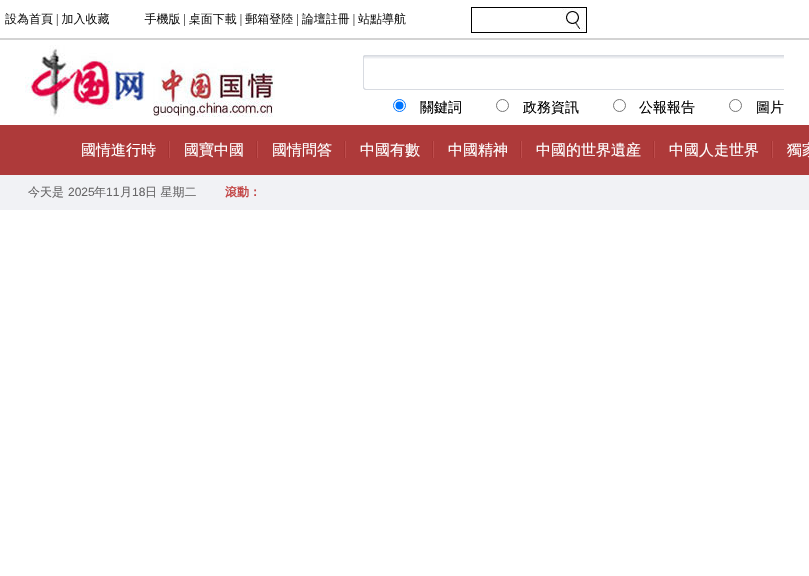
void draw(SkCanvas* canvas) {
  SkPaint paint;
  paint.setAntiAlias(true);
  auto face = [&](const char* family, int weight, float size, bool italic = false) {
    SkFontStyle style(weight, SkFontStyle::kNormal_Width,
      italic ? SkFontStyle::kItalic_Slant : SkFontStyle::kUpright_Slant);
    SkFont result(fontMgr->matchFamilyStyle(family, style), size);
    result.setSubpixel(true);
    return result;
  };
  auto paste = [&](const char* path, float x, float y, float w, float h) {
    auto image = SkImages::DeferredFromEncodedData(SkData::MakeFromFileName(path));
    canvas->drawImageRect(image, SkRect::MakeXYWH(x, y, w, h), SkSamplingOptions());
  };
  canvas->clear(0xffffffff);
  paste("img/1.png", 0, 7, 809, 33);
  paste("img/2.png", 25, 45, 250, 72);
  paste("img/3.png", 363, 55, 421, 35);
  paint.setStroke(true);
  paint.setStrokeWidth(1);
  paint.setColor(0xff0075ff);
  canvas->drawCircle(399.5f, 105.5f, 6, paint);
  paint.setStroke(false);
  canvas->drawCircle(399.5f, 105.5f, 4, paint);
  paint.setStroke(true);
  paint.setColor(0xff767676);
  canvas->drawCircle(502.5f, 105.5f, 6, paint);
  canvas->drawCircle(619.5f, 105.5f, 6, paint);
  canvas->drawCircle(735.5f, 105.5f, 6, paint);
  paint.setStroke(false);
  paint.setColor(0xffae3a3a);
  canvas->drawRect(SkRect::MakeXYWH(0, 125, 809, 50), paint);
  paste("img/4.png", 168, 141, 2, 17);
  paste("img/4.png", 256, 141, 2, 17);
  paste("img/4.png", 344, 141, 2, 17);
  paste("img/4.png", 432, 141, 2, 17);
  paste("img/4.png", 520, 141, 2, 17);
  paste("img/4.png", 653, 141, 2, 17);
  paste("img/4.png", 771, 141, 2, 17);
  paint.setColor(0xfff1f2f5);
  canvas->drawRect(SkRect::MakeXYWH(0, 175, 809, 35), paint);
  auto f0 = face("WenQuanYi Zen Hei", 500, 14);
  paint.setColor(0xff000000);
  {
    const struct { const char* s; float x, y; } items[] = {
      {"關鍵詞", 420, 112},
      {"政務資訊", 523, 112},
      {"公報報告", 639, 112},
      {"圖片", 756, 112},
    };
    for (auto [s, x, y] : items) {
      canvas->drawString(s, x, y, f0, paint);
    }
  }
  auto f1 = face("WenQuanYi Zen Hei", 500, 15);
  paint.setColor(0xffffffff);
  {
    const struct { const char* s; float x, y; } items[] = {
      {"國情進行時", 81, 155},
      {"國寶中國", 184, 155},
      {"國情問答", 272, 155},
      {"中國有數", 360, 155},
      {"中國精神", 448, 155},
      {"中國的世界遺産", 536, 155},
      {"中國人走世界", 669, 155},
      {"獨家", 787, 155},
    };
    for (auto [s, x, y] : items) {
      canvas->drawString(s, x, y, f1, paint);
    }
  }
  auto f2 = face("WenQuanYi Zen Hei", 500, 12);
  paint.setColor(0xff676667);
  canvas->drawString("今天是", 28, 196, f2, paint);
  auto f3 = face("Liberation Sans", 400, 12);
  canvas->drawString("2025", 68, 196, f3, paint);
  canvas->drawString("年", 94, 196, f2, paint);
  canvas->drawString("11", 106, 196, f3, paint);
  canvas->drawString("月", 120, 196, f2, paint);
  canvas->drawString("18", 132, 196, f3, paint);
  canvas->drawString("日 星期二", 145, 196, f2, paint);
  auto f4 = face("WenQuanYi Zen Hei", 700, 12);
  paint.setColor(0xffc34646);
  canvas->drawString("滾動：", 225, 196, f4, paint);
}
